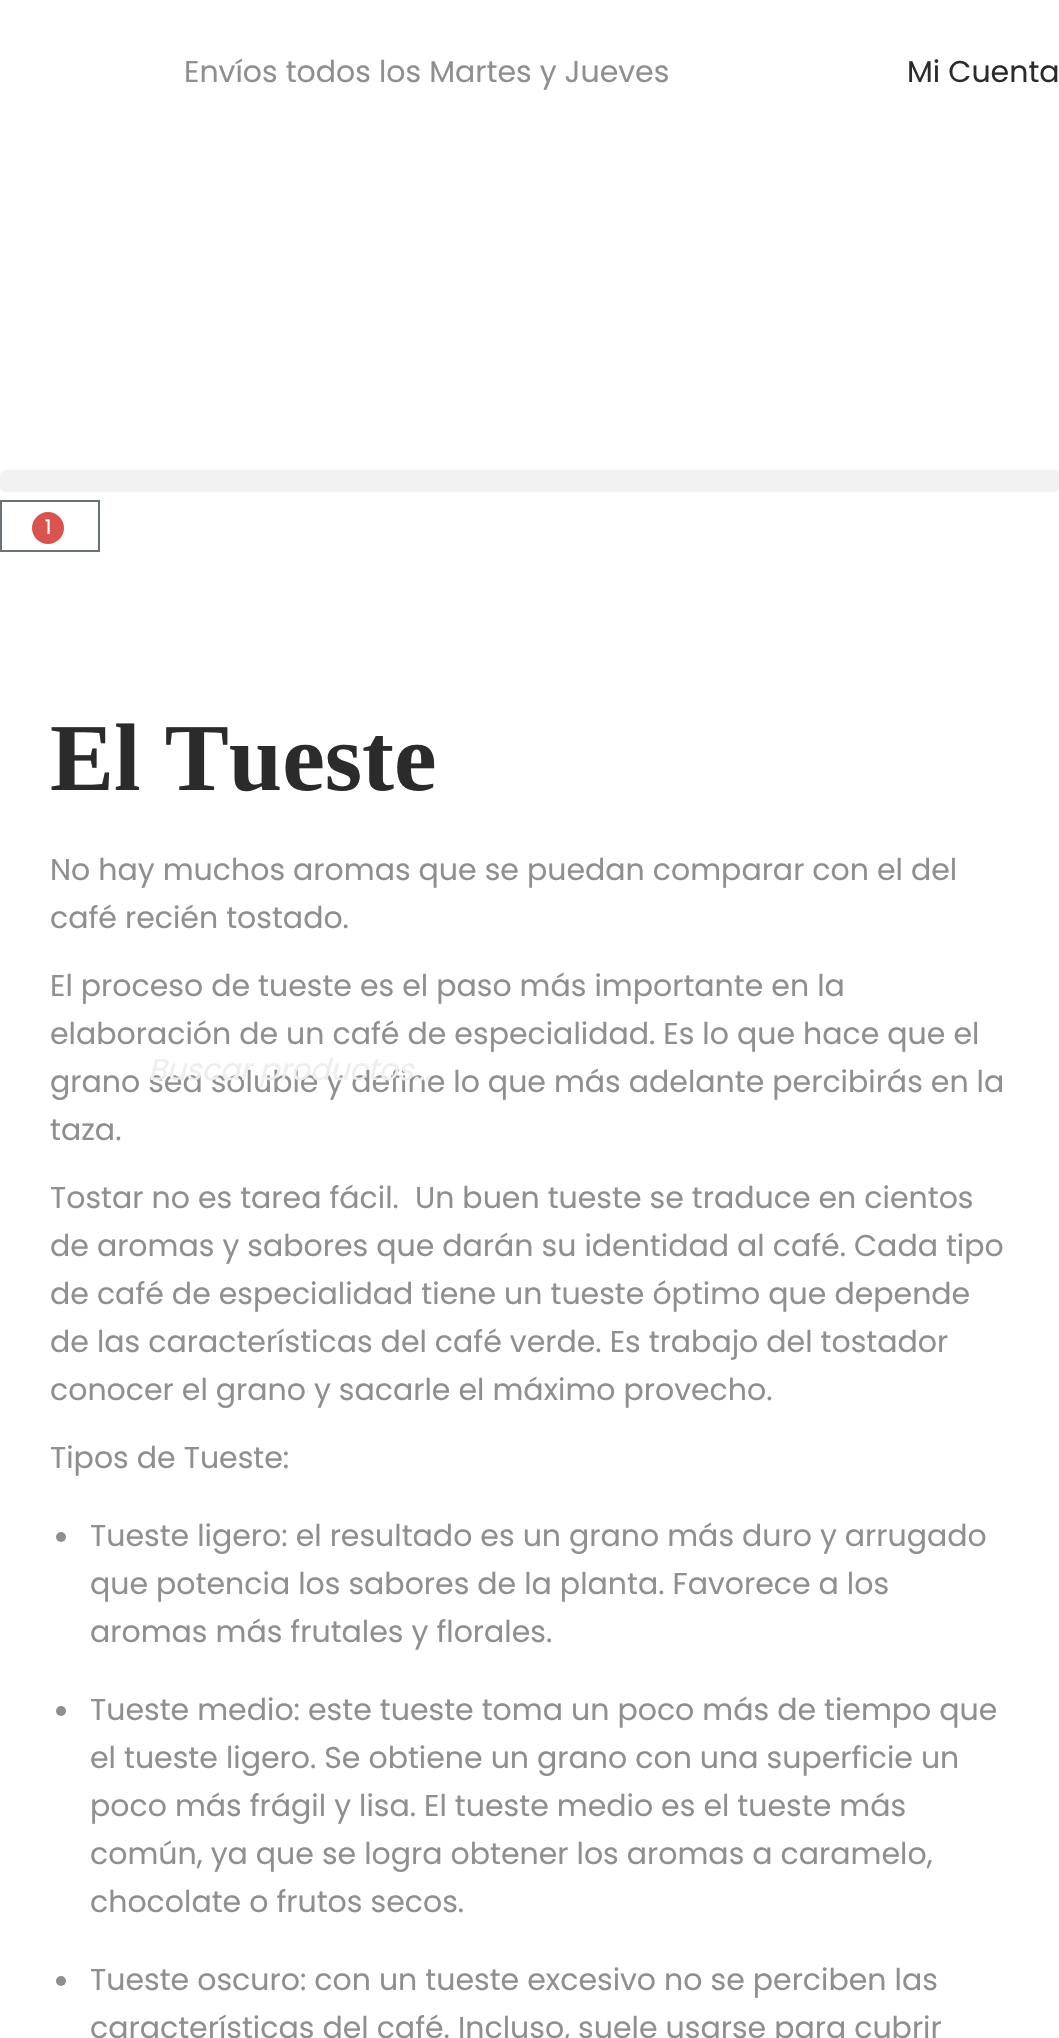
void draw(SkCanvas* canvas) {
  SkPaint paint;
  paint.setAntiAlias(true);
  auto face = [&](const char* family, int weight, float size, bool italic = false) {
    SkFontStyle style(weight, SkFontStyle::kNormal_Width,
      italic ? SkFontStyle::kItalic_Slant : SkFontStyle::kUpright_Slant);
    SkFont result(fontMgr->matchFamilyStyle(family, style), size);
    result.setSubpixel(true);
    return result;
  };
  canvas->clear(0xffffffff);
  paint.setColor(0xfff2f2f2);
  canvas->drawRoundRect(SkRect::MakeXYWH(0, 470, 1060, 22), 6, 6, paint);
  paint.setStroke(true);
  paint.setStrokeWidth(2);
  paint.setColor(0xff69727d);
  canvas->drawRect(SkRect::MakeXYWH(1, 501, 98, 50), paint);
  paint.setStroke(false);
  paint.setColor(0xffd9534f);
  canvas->drawCircle(48, 528, 16, paint);
  paint.setColor(0xff8f8f8f);
  canvas->drawCircle(61, 1537, 5, paint);
  canvas->drawCircle(61, 1711, 5, paint);
  canvas->drawCircle(61, 1981, 5, paint);
  auto f0 = face("Poppins", 400, 30);
  canvas->drawString("Envíos todos los Martes y Jueves", 184, 82, f0, paint);
  paint.setColor(0xff2b2b2b);
  canvas->drawString("Mi Cuenta", 907, 82, f0, paint);
  auto f1 = face("Poppins", 400, 20);
  paint.setColor(0xffffffff);
  canvas->drawString("1", 45, 534, f1, paint);
  auto f2 = face("Liberation Serif", 700, 96);
  paint.setColor(0xff2b2b2b);
  canvas->drawString("El Tueste", 50, 790, f2, paint);
  paint.setColor(0xff8f8f8f);
  {
    const struct { const char* s; float x, y; } items[] = {
      {"No hay muchos aromas que se puedan comparar con el del", 50, 880},
      {"café recién tostado.", 50, 928},
      {"El proceso de tueste es el paso más importante en la", 50, 996},
      {"elaboración de un café de especialidad. Es lo que hace que el", 50, 1044},
      {"grano sea soluble y define lo que más adelante percibirás en la", 50, 1092},
      {"taza.", 50, 1140},
      {"Tostar no es tarea fácil.  Un buen tueste se traduce en cientos", 50, 1208},
      {"de aromas y sabores que darán su identidad al café. Cada tipo", 50, 1256},
      {"de café de especialidad tiene un tueste óptimo que depende", 50, 1304},
      {"de las características del café verde. Es trabajo del tostador", 50, 1352},
      {"conocer el grano y sacarle el máximo provecho.", 50, 1400},
      {"Tipos de Tueste:", 50, 1468},
      {"Tueste ligero: el resultado es un grano más duro y arrugado", 90, 1546},
      {"que potencia los sabores de la planta. Favorece a los", 90, 1594},
      {"aromas más frutales y florales.", 90, 1642},
      {"Tueste medio: este tueste toma un poco más de tiempo que", 90, 1720},
      {"el tueste ligero. Se obtiene un grano con una superficie un", 90, 1768},
      {"poco más frágil y lisa. El tueste medio es el tueste más", 90, 1816},
      {"común, ya que se logra obtener los aromas a caramelo,", 90, 1864},
      {"chocolate o frutos secos.", 90, 1912},
      {"Tueste oscuro: con un tueste excesivo no se perciben las", 90, 1990},
      {"características del café. Incluso, suele usarse para cubrir", 90, 2038},
    };
    for (auto [s, x, y] : items) {
      canvas->drawString(s, x, y, f0, paint);
    }
  }
  auto f3 = face("Poppins", 400, 30, true);
  paint.setColor(0xffeeeeee);
  canvas->drawString("Buscar productos…", 148, 1080, f3, paint);
}
